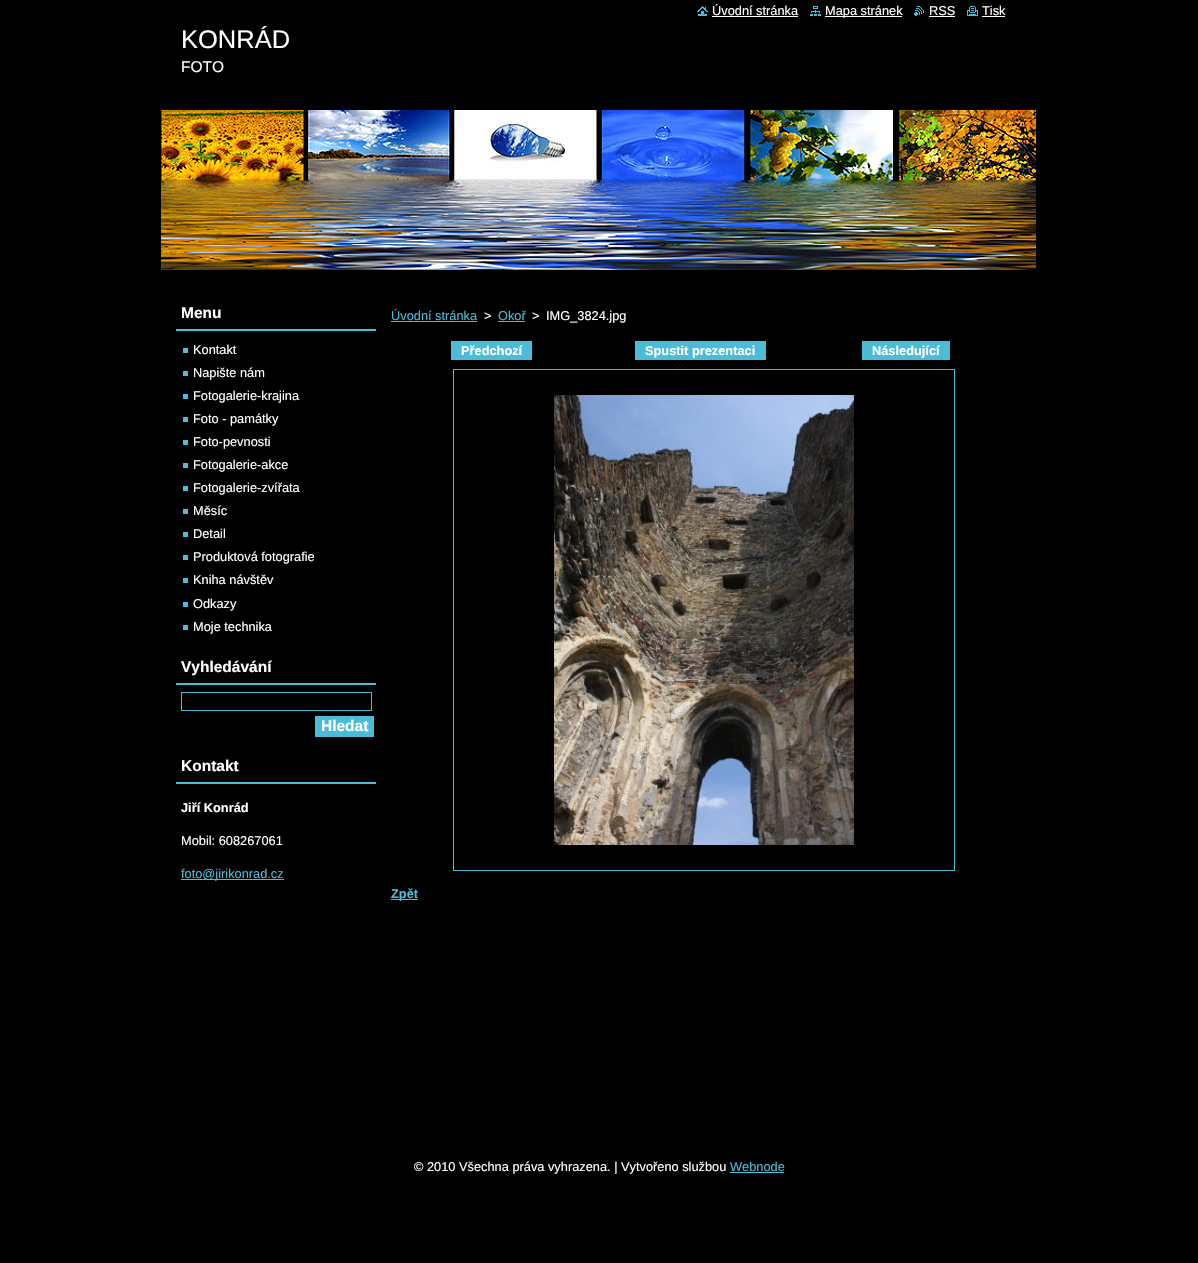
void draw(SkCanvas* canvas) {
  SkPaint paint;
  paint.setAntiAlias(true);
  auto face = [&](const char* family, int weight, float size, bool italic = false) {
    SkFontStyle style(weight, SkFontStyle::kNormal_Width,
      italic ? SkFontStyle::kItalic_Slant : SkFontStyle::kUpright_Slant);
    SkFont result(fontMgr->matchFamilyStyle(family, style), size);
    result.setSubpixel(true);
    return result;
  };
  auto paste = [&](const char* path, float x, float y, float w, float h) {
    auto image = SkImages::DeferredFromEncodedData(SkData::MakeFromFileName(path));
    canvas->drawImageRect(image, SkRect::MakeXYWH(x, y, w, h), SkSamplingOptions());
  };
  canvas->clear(0xff000000);
  paste("img/1.png", 697, 6, 11, 10);
  paint.setColor(0xffffffff);
  canvas->drawRect(SkRect::MakeXYWH(712, 16, 86, 1), paint);
  paste("img/2.png", 810, 6, 11, 10);
  canvas->drawRect(SkRect::MakeXYWH(825, 16, 77, 1), paint);
  paste("img/3.png", 914, 6, 10, 10);
  canvas->drawRect(SkRect::MakeXYWH(929, 16, 26, 1), paint);
  paste("img/4.png", 967, 6, 11, 10);
  canvas->drawRect(SkRect::MakeXYWH(982, 16, 23, 1), paint);
  paste("img/5.png", 161, 106, 875, 164);
  {
    const struct { float x, y, w, h; SkColor color; } items[] = {
      {176, 329, 200, 2, 0xff4bbcd8},
      {183, 348, 5, 5, 0xff4bbdd8},
      {183, 371, 5, 5, 0xff4bbdd8},
      {183, 394, 5, 5, 0xff4bbdd8},
      {183, 417, 5, 5, 0xff4bbdd8},
      {183, 440, 5, 5, 0xff4bbdd8},
      {183, 463, 5, 5, 0xff4bbdd8},
      {183, 486, 5, 5, 0xff4bbdd8},
      {183, 509, 5, 5, 0xff4bbdd8},
      {183, 532, 5, 5, 0xff4bbdd8},
      {183, 555, 5, 5, 0xff4bbdd8},
      {183, 578, 5, 5, 0xff4bbdd8},
      {183, 602, 5, 5, 0xff4bbdd8},
      {183, 625, 5, 5, 0xff4bbdd8},
      {176, 683, 200, 2, 0xff4bbcd8},
    };
    for (auto [x, y, w, h, color] : items) {
      paint.setColor(color);
      canvas->drawRect(SkRect::MakeXYWH(x, y, w, h), paint);
    }
  }
  paint.setStroke(true);
  paint.setStrokeWidth(1);
  canvas->drawRect(SkRect::MakeXYWH(181.5f, 692.5f, 190, 18), paint);
  paint.setStroke(false);
  {
    const struct { float x, y, w, h; SkColor color; } items[] = {
      {315, 716, 59, 21, 0xff4bbcd8},
      {176, 782, 200, 2, 0xff4bbcd8},
      {181, 879, 44, 1, 0xff4bbcd8},
      {225, 879, 59, 1, 0xff4bbcd8},
      {391, 321, 86, 1, 0xff4bbcd8},
      {498, 321, 27, 1, 0xff4bbcd8},
      {451, 341, 81, 19, 0xff4bbcd8},
      {635, 341, 131, 19, 0xff4bbcd8},
      {862, 341, 88, 19, 0xff4bbcd8},
    };
    for (auto [x, y, w, h, color] : items) {
      paint.setColor(color);
      canvas->drawRect(SkRect::MakeXYWH(x, y, w, h), paint);
    }
  }
  paint.setStroke(true);
  canvas->drawRect(SkRect::MakeXYWH(453.5f, 369.5f, 501, 501), paint);
  paste("img/6.png", 554, 395, 300, 450);
  paint.setStroke(false);
  canvas->drawRect(SkRect::MakeXYWH(391, 899, 27, 1), paint);
  canvas->drawRect(SkRect::MakeXYWH(730, 1172, 54, 1), paint);
  auto f0 = face("Liberation Sans", 400, 12.8f);
  paint.setColor(0xffffffff);
  {
    const struct { const char* s; float x, y; } items[] = {
      {"Úvodní stránka", 712, 15},
      {"Mapa stránek", 825, 15},
      {"RSS", 929, 15},
      {"Tisk", 982, 15},
    };
    for (auto [s, x, y] : items) {
      canvas->drawString(s, x, y, f0, paint);
    }
  }
  auto f1 = face("Liberation Sans", 400, 25.5f);
  canvas->drawString("KONRÁD", 181, 48, f1, paint);
  auto f2 = face("Liberation Sans", 400, 15.5f);
  canvas->drawString("FOTO", 181, 72, f2, paint);
  auto f3 = face("Liberation Sans", 700, 15.5f);
  canvas->drawString("Menu", 181, 318, f3, paint);
  {
    const struct { const char* s; float x, y; } items[] = {
      {"Kontakt", 193, 354},
      {"Napište nám", 193, 377},
      {"Fotogalerie-krajina", 193, 400},
      {"Foto - památky", 193, 423},
      {"Foto-pevnosti", 193, 446},
      {"Fotogalerie-akce", 193, 469},
      {"Fotogalerie-zvířata", 193, 492},
      {"Měsíc", 193, 515},
      {"Detail", 193, 538},
      {"Produktová fotografie", 193, 561},
      {"Kniha návštěv", 193, 584},
      {"Odkazy", 193, 608},
      {"Moje technika", 193, 631},
    };
    for (auto [s, x, y] : items) {
      canvas->drawString(s, x, y, f0, paint);
    }
  }
  {
    const struct { const char* s; float x, y; } items[] = {
      {"Vyhledávání", 181, 672},
      {"Hledat", 321, 731},
      {"Kontakt", 181, 771},
    };
    for (auto [s, x, y] : items) {
      canvas->drawString(s, x, y, f3, paint);
    }
  }
  auto f4 = face("Liberation Sans", 700, 12.8f);
  canvas->drawString("Jiří Konrád", 181, 812, f4, paint);
  canvas->drawString("Mobil: 608267061", 181, 845, f0, paint);
  paint.setColor(0xff4bbcd8);
  canvas->drawString("foto@jirikonrad.cz", 181, 878, f0, paint);
  canvas->drawString("Úvodní stránka", 391, 320, f0, paint);
  paint.setColor(0xffffffff);
  canvas->drawString(">", 484, 320, f0, paint);
  paint.setColor(0xff4bbcd8);
  canvas->drawString("Okoř", 498, 320, f0, paint);
  paint.setColor(0xffffffff);
  canvas->drawString(">", 532, 320, f0, paint);
  canvas->drawString("IMG_3824.jpg", 546, 320, f0, paint);
  {
    const struct { const char* s; float x, y; } items[] = {
      {"Předchozí", 461, 355},
      {"Spustit prezentaci", 645, 355},
      {"Následující", 872, 355},
    };
    for (auto [s, x, y] : items) {
      canvas->drawString(s, x, y, f4, paint);
    }
  }
  paint.setColor(0xff4bbcd8);
  canvas->drawString("Zpět", 391, 898, f4, paint);
  paint.setColor(0xffffffff);
  canvas->drawString("© 2010 Všechna práva vyhrazena. | Vytvořeno službou", 414, 1171, f0, paint);
  paint.setColor(0xff4bbcd8);
  canvas->drawString("Webnode", 730, 1171, f0, paint);
}
